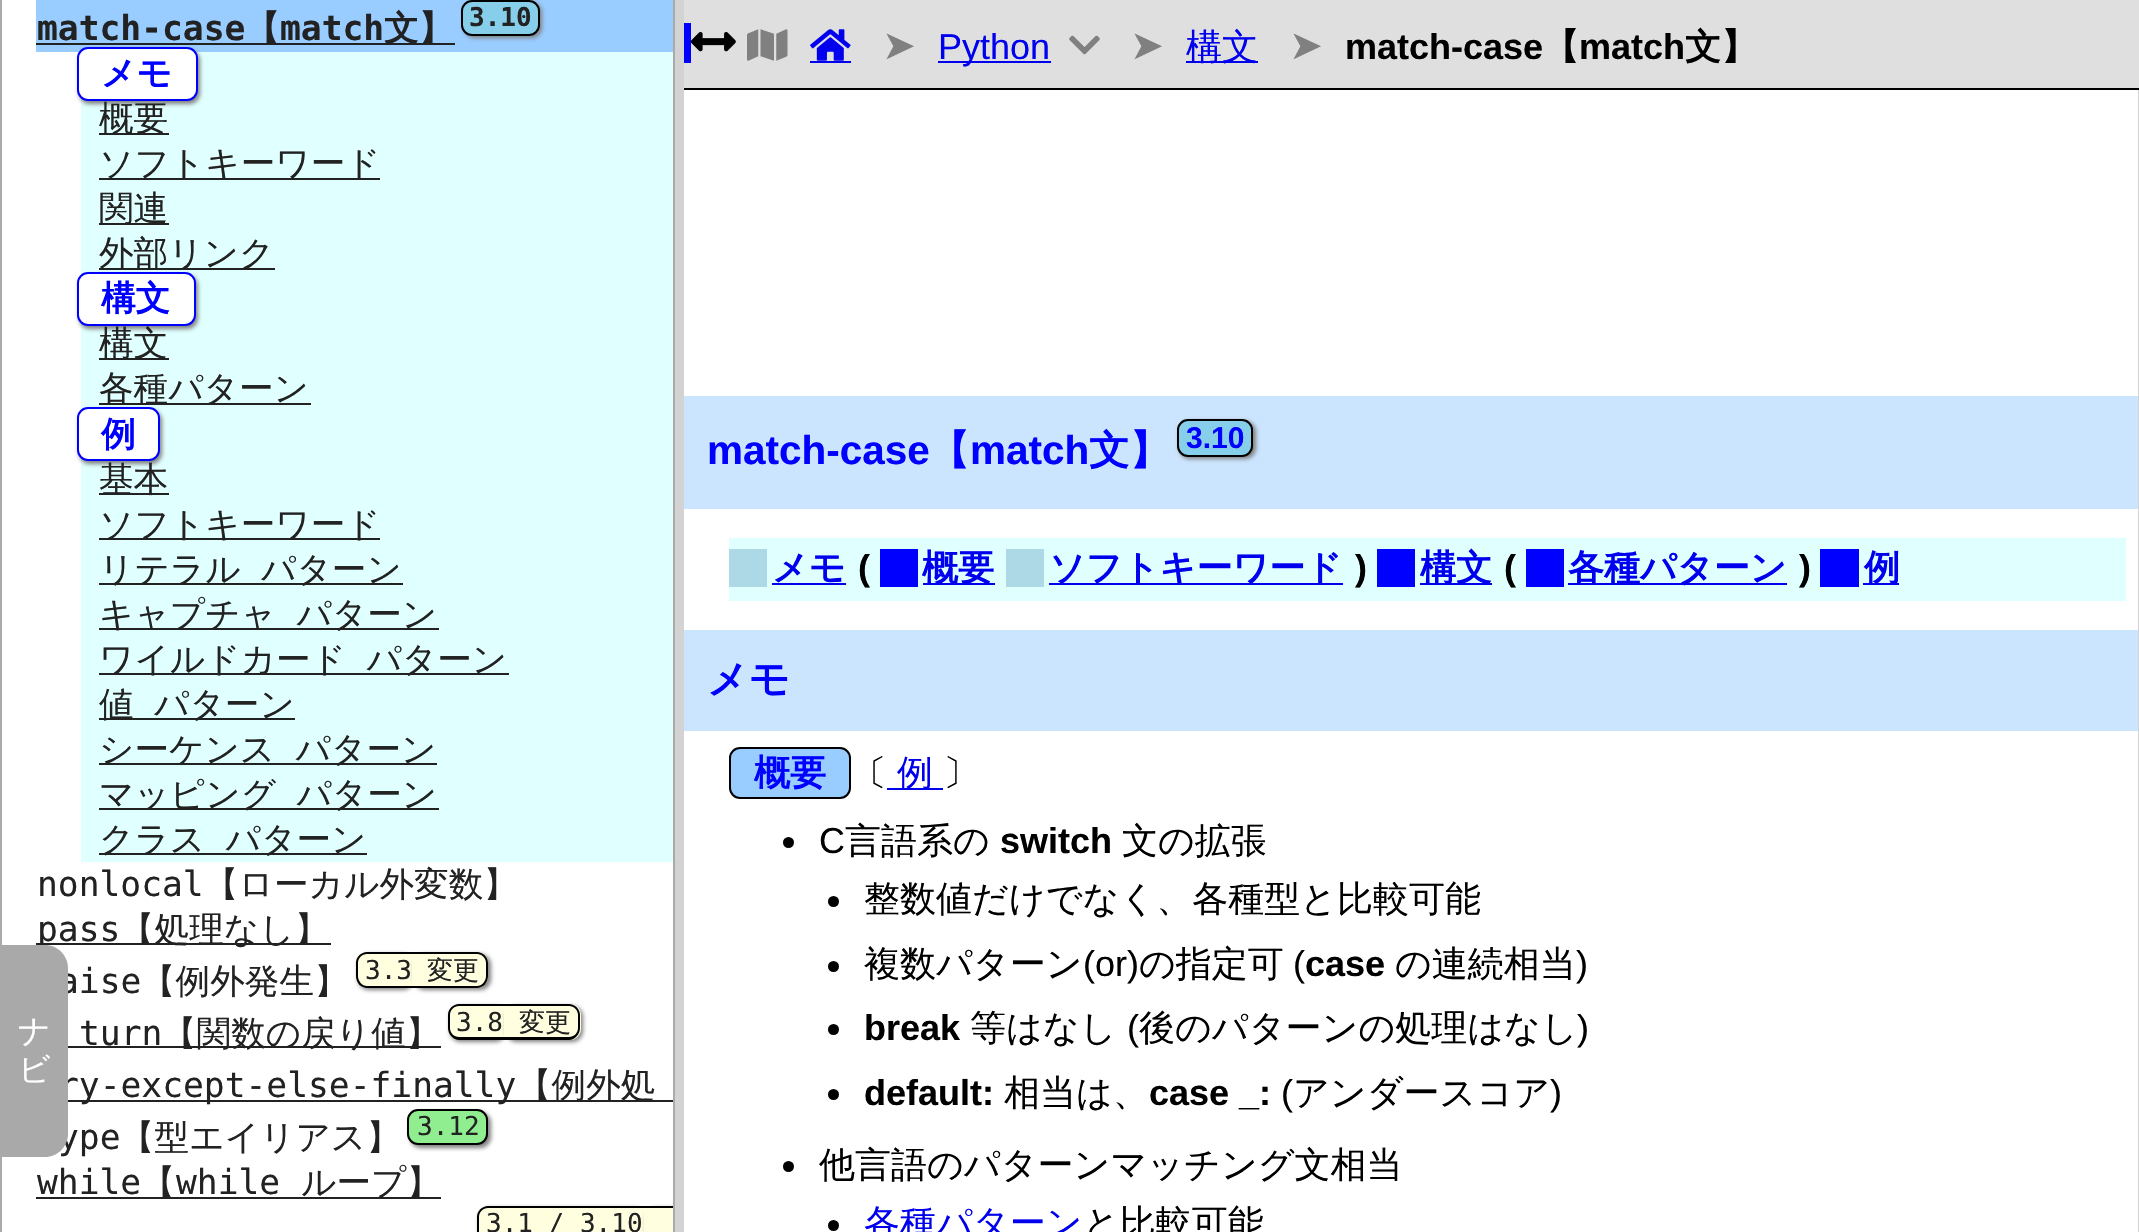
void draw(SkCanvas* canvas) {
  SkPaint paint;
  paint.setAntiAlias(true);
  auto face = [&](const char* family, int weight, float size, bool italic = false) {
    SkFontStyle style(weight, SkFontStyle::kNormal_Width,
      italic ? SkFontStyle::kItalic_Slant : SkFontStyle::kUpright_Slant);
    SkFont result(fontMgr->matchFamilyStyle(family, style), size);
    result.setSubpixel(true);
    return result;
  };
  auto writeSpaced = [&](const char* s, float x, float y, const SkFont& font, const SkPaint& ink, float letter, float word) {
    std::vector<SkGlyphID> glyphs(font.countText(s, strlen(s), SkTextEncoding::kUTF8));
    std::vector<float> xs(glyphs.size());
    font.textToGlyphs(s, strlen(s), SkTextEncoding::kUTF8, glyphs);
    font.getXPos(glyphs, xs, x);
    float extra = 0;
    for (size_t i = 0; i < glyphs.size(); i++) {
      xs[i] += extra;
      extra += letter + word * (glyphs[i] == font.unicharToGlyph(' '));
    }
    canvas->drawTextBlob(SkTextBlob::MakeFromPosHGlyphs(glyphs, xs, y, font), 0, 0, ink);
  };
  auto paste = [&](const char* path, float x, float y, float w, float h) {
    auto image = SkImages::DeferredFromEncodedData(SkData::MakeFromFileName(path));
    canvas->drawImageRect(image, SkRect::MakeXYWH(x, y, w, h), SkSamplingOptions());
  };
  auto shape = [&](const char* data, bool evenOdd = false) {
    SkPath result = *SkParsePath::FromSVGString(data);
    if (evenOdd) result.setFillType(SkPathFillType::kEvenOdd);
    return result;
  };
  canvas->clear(0xffffffff);
  paint.setColor(0xffaaaaaa);
  canvas->drawPath(shape("M0-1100H675V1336C675 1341 671 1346 666 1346H9C4 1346 0 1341 0 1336ZM2-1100H673V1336C673 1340 670 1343 666 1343H9C5 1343 2 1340 2 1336Z", true), paint);
  paint.setColor(0xff99ccff);
  canvas->drawRect(SkRect::MakeXYWH(36, 0, 637, 52), paint);
  paint.setColor(0xff222222);
  canvas->drawRect(SkRect::MakeXYWH(36, 43, 419, 2), paint);
  paint.setColor(0xff808080);
  paint.setMaskFilter(SkMaskFilter::MakeBlur(kNormal_SkBlurStyle, 2));
  canvas->drawRoundRect(SkRect::MakeXYWH(464, 2, 78, 36), 11, 11, paint);
  paint.setMaskFilter(nullptr);
  paint.setColor(0xff87ceeb);
  canvas->drawRoundRect(SkRect::MakeXYWH(462, 1, 77, 34), 10, 10, paint);
  paint.setStroke(true);
  paint.setStrokeWidth(2);
  paint.setColor(0xff000000);
  canvas->drawRoundRect(SkRect::MakeXYWH(462, 1, 77, 34), 10, 10, paint);
  paint.setStroke(false);
  paint.setColor(0xffe0ffff);
  canvas->drawRect(SkRect::MakeXYWH(81, 52, 592, 810), paint);
  paint.setColor(0xff808080);
  paint.setMaskFilter(SkMaskFilter::MakeBlur(kNormal_SkBlurStyle, 2));
  canvas->drawRoundRect(SkRect::MakeXYWH(79, 50, 121, 54), 11, 11, paint);
  paint.setMaskFilter(nullptr);
  paint.setColor(0xffffffff);
  canvas->drawRoundRect(SkRect::MakeXYWH(78, 48, 119, 52), 10, 10, paint);
  paint.setStroke(true);
  paint.setColor(0xff0000ff);
  canvas->drawRoundRect(SkRect::MakeXYWH(78, 48, 119, 52), 10, 10, paint);
  paint.setStroke(false);
  {
    const struct { float x, y, w, h; SkColor color; } items[] = {
      {99, 133, 70, 2, 0xff222222},
      {99, 178, 281, 2, 0xff222222},
      {99, 223, 70, 2, 0xff222222},
      {99, 268, 176, 2, 0xff222222},
    };
    for (auto [x, y, w, h, color] : items) {
      paint.setColor(color);
      canvas->drawRect(SkRect::MakeXYWH(x, y, w, h), paint);
    }
  }
  paint.setColor(0xff808080);
  paint.setMaskFilter(SkMaskFilter::MakeBlur(kNormal_SkBlurStyle, 2));
  canvas->drawRoundRect(SkRect::MakeXYWH(79, 275, 119, 54), 11, 11, paint);
  paint.setMaskFilter(nullptr);
  paint.setColor(0xffffffff);
  canvas->drawRoundRect(SkRect::MakeXYWH(78, 273, 117, 52), 10, 10, paint);
  paint.setStroke(true);
  paint.setColor(0xff0000ff);
  canvas->drawRoundRect(SkRect::MakeXYWH(78, 273, 117, 52), 10, 10, paint);
  paint.setStroke(false);
  paint.setColor(0xff222222);
  canvas->drawRect(SkRect::MakeXYWH(99, 358, 70, 2), paint);
  canvas->drawRect(SkRect::MakeXYWH(99, 403, 212, 2), paint);
  paint.setColor(0xff808080);
  paint.setMaskFilter(SkMaskFilter::MakeBlur(kNormal_SkBlurStyle, 2));
  canvas->drawRoundRect(SkRect::MakeXYWH(79, 410, 83, 54), 11, 11, paint);
  paint.setMaskFilter(nullptr);
  paint.setColor(0xffffffff);
  canvas->drawRoundRect(SkRect::MakeXYWH(78, 408, 81, 52), 10, 10, paint);
  paint.setStroke(true);
  paint.setColor(0xff0000ff);
  canvas->drawRoundRect(SkRect::MakeXYWH(78, 408, 81, 52), 10, 10, paint);
  paint.setStroke(false);
  {
    const struct { float x, y, w, h; SkColor color; } items[] = {
      {99, 493, 70, 2, 0xff222222},
      {99, 538, 281, 2, 0xff222222},
      {99, 583, 304, 2, 0xff222222},
      {99, 628, 340, 2, 0xff222222},
      {99, 673, 410, 2, 0xff222222},
      {99, 718, 196, 2, 0xff222222},
      {99, 763, 338, 2, 0xff222222},
      {99, 808, 340, 2, 0xff222222},
      {99, 853, 268, 2, 0xff222222},
      {36, 943, 295, 2, 0xff222222},
    };
    for (auto [x, y, w, h, color] : items) {
      paint.setColor(color);
      canvas->drawRect(SkRect::MakeXYWH(x, y, w, h), paint);
    }
  }
  paint.setColor(0xff808080);
  paint.setMaskFilter(SkMaskFilter::MakeBlur(kNormal_SkBlurStyle, 2));
  canvas->drawRoundRect(SkRect::MakeXYWH(358, 954, 56, 36), 11, 11, paint);
  paint.setMaskFilter(nullptr);
  paint.setColor(0xffffffe0);
  canvas->drawPath(shape("M367 952H412V988H367C361 988 356 983 356 977V963C356 957 361 952 367 952Z"), paint);
  paint.setColor(0xff000000);
  canvas->drawPath(shape("M367 952H412V988H367C361 988 356 983 356 976V963C356 957 361 952 367 952ZM367 954H412V986H367C362 986 358 981 358 976V963C358 958 362 954 367 954Z", true), paint);
  paint.setColor(0xff808080);
  paint.setMaskFilter(SkMaskFilter::MakeBlur(kNormal_SkBlurStyle, 2));
  canvas->drawRoundRect(SkRect::MakeXYWH(414, 954, 77, 36), 11, 11, paint);
  paint.setMaskFilter(nullptr);
  paint.setColor(0xffffffe0);
  canvas->drawPath(shape("M412 952H477C483 952 488 957 488 963V977C488 983 483 988 477 988H412Z"), paint);
  paint.setColor(0xff000000);
  canvas->drawPath(shape("M412 952H477C483 952 488 957 488 963V976C488 983 483 988 477 988H412ZM412 954H477C482 954 486 958 486 963V976C486 981 482 986 477 986H412Z", true), paint);
  paint.setColor(0xff222222);
  canvas->drawRect(SkRect::MakeXYWH(68, 1046, 373, 2), paint);
  paint.setColor(0xff808080);
  paint.setMaskFilter(SkMaskFilter::MakeBlur(kNormal_SkBlurStyle, 2));
  canvas->drawRoundRect(SkRect::MakeXYWH(450, 1006, 56, 36), 11, 11, paint);
  paint.setMaskFilter(nullptr);
  paint.setColor(0xffffffe0);
  canvas->drawPath(shape("M459 1004H504V1040H459C453 1040 448 1035 448 1029V1015C448 1009 453 1004 459 1004Z"), paint);
  paint.setColor(0xff000000);
  canvas->drawPath(shape("M459 1004H504V1040H459C453 1040 448 1034 448 1028V1015C448 1009 453 1004 459 1004ZM459 1006H504V1037H459C454 1037 450 1033 450 1028V1015C450 1010 454 1006 459 1006Z", true), paint);
  paint.setColor(0xff808080);
  paint.setMaskFilter(SkMaskFilter::MakeBlur(kNormal_SkBlurStyle, 2));
  canvas->drawRoundRect(SkRect::MakeXYWH(506, 1006, 77, 36), 11, 11, paint);
  paint.setMaskFilter(nullptr);
  paint.setColor(0xffffffe0);
  canvas->drawPath(shape("M504 1004H570C576 1004 581 1009 581 1015V1029C581 1035 576 1040 570 1040H504Z"), paint);
  paint.setColor(0xff000000);
  canvas->drawPath(shape("M504 1004H569C575 1004 580 1009 580 1015V1028C580 1034 575 1040 569 1040H504ZM504 1006H569C574 1006 578 1010 578 1015V1028C578 1033 574 1037 569 1037H504Z", true), paint);
  paint.setColor(0xff222222);
  canvas->drawRect(SkRect::MakeXYWH(68, 1100, 605, 2), paint);
  paint.setColor(0xff808080);
  paint.setMaskFilter(SkMaskFilter::MakeBlur(kNormal_SkBlurStyle, 2));
  canvas->drawRoundRect(SkRect::MakeXYWH(410, 1112, 81, 36), 11, 11, paint);
  paint.setMaskFilter(nullptr);
  paint.setColor(0xff90ee90);
  canvas->drawRoundRect(SkRect::MakeXYWH(408, 1110, 79, 34), 10, 10, paint);
  paint.setStroke(true);
  paint.setColor(0xff000000);
  canvas->drawRoundRect(SkRect::MakeXYWH(408, 1110, 79, 34), 10, 10, paint);
  paint.setStroke(false);
  paint.setColor(0xff222222);
  canvas->drawRect(SkRect::MakeXYWH(36, 1197, 405, 2), paint);
  paint.setColor(0xff808080);
  paint.setMaskFilter(SkMaskFilter::MakeBlur(kNormal_SkBlurStyle, 2));
  canvas->drawRoundRect(SkRect::MakeXYWH(479, 1208, 167, 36), 11, 11, paint);
  paint.setMaskFilter(nullptr);
  paint.setColor(0xffffffe0);
  canvas->drawPath(shape("M488 1206H644V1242H488C482 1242 477 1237 477 1231V1217C477 1211 482 1206 488 1206Z"), paint);
  paint.setColor(0xff000000);
  canvas->drawPath(shape("M488 1206H644V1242H488C482 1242 477 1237 477 1231V1217C477 1211 482 1206 488 1206ZM488 1208H644V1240H488C483 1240 479 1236 479 1231V1217C479 1212 483 1208 488 1208Z", true), paint);
  canvas->save();
  canvas->clipPath(shape("M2-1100H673V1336C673 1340 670 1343 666 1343H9C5 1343 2 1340 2 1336Z"), true);
  paint.setColor(0xff808080);
  paint.setMaskFilter(SkMaskFilter::MakeBlur(kNormal_SkBlurStyle, 2));
  canvas->drawRoundRect(SkRect::MakeXYWH(646, 1208, 76, 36), 11, 11, paint);
  paint.setMaskFilter(nullptr);
  canvas->restore();
  paint.setColor(0xffffffe0);
  canvas->drawRect(SkRect::MakeXYWH(644, 1208, 29, 24), paint);
  paint.setColor(0xff000000);
  canvas->drawPath(shape("M644 1206V1208H673V1206ZM673 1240V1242H644V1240Z", true), paint);
  {
    const struct { float x, y, w, h; SkColor color; } items[] = {
      {2138, 90, 1, 1142, 0xffd3d3d3},
      {675, 0, 9, 1232, 0xffd3d3d3},
      {684, 0, 1455, 88, 0xffdfdfdf},
      {684, 88, 1455, 2, 0xff000000},
      {684, 23, 7, 40, 0xff0000ff},
    };
    for (auto [x, y, w, h, color] : items) {
      paint.setColor(color);
      canvas->drawRect(SkRect::MakeXYWH(x, y, w, h), paint);
    }
  }
  paste("img/1.png", 690, 31, 46, 21);
  paste("img/2.png", 747, 29, 41, 32);
  paste("img/3.png", 810, 29, 41, 32);
  paint.setColor(0xff0000ee);
  canvas->drawRect(SkRect::MakeXYWH(810, 61, 41, 2), paint);
  canvas->drawRect(SkRect::MakeXYWH(938, 61, 113, 2), paint);
  paste("img/4.png", 1069, 35, 31, 20);
  canvas->drawRect(SkRect::MakeXYWH(1186, 61, 72, 2), paint);
  paint.setColor(0xffcce5ff);
  canvas->drawRect(SkRect::MakeXYWH(684, 396, 1454, 113), paint);
  paint.setColor(0xff808080);
  paint.setMaskFilter(SkMaskFilter::MakeBlur(kNormal_SkBlurStyle, 2));
  canvas->drawRoundRect(SkRect::MakeXYWH(1179, 421, 77, 38), 11, 11, paint);
  paint.setMaskFilter(nullptr);
  paint.setColor(0xff87ceeb);
  canvas->drawRoundRect(SkRect::MakeXYWH(1178, 420, 74, 36), 10, 10, paint);
  paint.setStroke(true);
  paint.setColor(0xff000000);
  canvas->drawRoundRect(SkRect::MakeXYWH(1178, 420, 74, 36), 10, 10, paint);
  paint.setStroke(false);
  {
    const struct { float x, y, w, h; SkColor color; } items[] = {
      {729, 538, 1397, 63, 0xffe0ffff},
      {729, 549, 38, 38, 0xffadd8e6},
      {772, 583, 74, 2, 0xff0000ee},
      {880, 549, 38, 38, 0xff0000ff},
      {923, 583, 72, 2, 0xff0000ee},
      {1006, 549, 38, 38, 0xffadd8e6},
      {1049, 583, 294, 2, 0xff0000ee},
      {1377, 549, 38, 38, 0xff0000ff},
      {1420, 583, 72, 2, 0xff0000ee},
      {1526, 549, 38, 38, 0xff0000ff},
      {1568, 583, 219, 2, 0xff0000ee},
      {1820, 549, 39, 38, 0xff0000ff},
      {1863, 583, 36, 2, 0xff0000ee},
      {684, 630, 1454, 101, 0xffcce5ff},
    };
    for (auto [x, y, w, h, color] : items) {
      paint.setColor(color);
      canvas->drawRect(SkRect::MakeXYWH(x, y, w, h), paint);
    }
  }
  paint.setColor(0xff99ccff);
  canvas->drawRoundRect(SkRect::MakeXYWH(730, 748, 120, 50), 10, 10, paint);
  paint.setStroke(true);
  paint.setColor(0xff000000);
  canvas->drawRoundRect(SkRect::MakeXYWH(730, 748, 120, 50), 10, 10, paint);
  paint.setStroke(false);
  paint.setColor(0xff0000ee);
  canvas->drawRect(SkRect::MakeXYWH(887, 788, 56, 2), paint);
  paint.setColor(0xff000000);
  canvas->drawCircle(788.5f, 842.5f, 5.5f, paint);
  canvas->drawCircle(833.5f, 901.5f, 5.5f, paint);
  canvas->drawCircle(833.5f, 966.5f, 5.5f, paint);
  canvas->drawCircle(833.5f, 1029.5f, 5.5f, paint);
  canvas->drawCircle(833.5f, 1094.5f, 5.5f, paint);
  canvas->drawCircle(788.5f, 1166.5f, 5.5f, paint);
  canvas->drawCircle(833.5f, 1225.5f, 5.5f, paint);
  auto f0 = face("DejaVu Sans Mono", 700, 34.6f);
  paint.setColor(0xff222222);
  canvas->drawString("match-case", 37, 40, f0, paint);
  auto f1 = face("WenQuanYi Zen Hei", 700, 34.6f);
  canvas->drawString("【", 245, 40, f1, paint);
  canvas->drawString("match", 280, 40, f0, paint);
  canvas->drawString("文】", 384, 40, f1, paint);
  auto f2 = face("DejaVu Sans Mono", 700, 26);
  canvas->drawString("3.10", 469, 26, f2, paint);
  paint.setColor(0xff0000ff);
  canvas->drawString("メモ", 101, 85, f1, paint);
  auto f3 = face("WenQuanYi Zen Hei", 500, 34.6f);
  paint.setColor(0xff222222);
  {
    const struct { const char* s; float x, y; } items[] = {
      {"概要", 99, 130},
      {"ソフトキーワード", 99, 175},
      {"関連", 99, 220},
      {"外部リンク", 99, 265},
    };
    for (auto [s, x, y] : items) {
      canvas->drawString(s, x, y, f3, paint);
    }
  }
  paint.setColor(0xff0000ff);
  canvas->drawString("構文", 101, 310, f1, paint);
  paint.setColor(0xff222222);
  canvas->drawString("構文", 99, 355, f3, paint);
  canvas->drawString("各種パターン", 99, 400, f3, paint);
  paint.setColor(0xff0000ff);
  canvas->drawString("例", 101, 446, f1, paint);
  paint.setColor(0xff222222);
  canvas->drawString("基本", 99, 491, f3, paint);
  canvas->drawString("ソフトキーワード", 99, 536, f3, paint);
  {
    const struct { const char* s; float x, y; } items[] = {
      {"リテラル パターン", 99, 581},
      {"キャプチャ パターン", 99, 626},
      {"ワイルドカード パターン", 99, 671},
      {"値 パターン", 99, 716},
      {"シーケンス パターン", 99, 761},
      {"マッピング パターン", 99, 806},
      {"クラス パターン", 99, 851},
    };
    for (auto [s, x, y] : items) {
      writeSpaced(s, x, y, f3, paint, 0, 10);
    }
  }
  auto f4 = face("DejaVu Sans Mono", 400, 34.6f);
  canvas->drawString("nonlocal", 37, 896, f4, paint);
  canvas->drawString("【ローカル外変数】", 204, 896, f3, paint);
  canvas->drawString("pass", 37, 941, f4, paint);
  canvas->drawString("【処理なし】", 120, 941, f3, paint);
  canvas->drawString("aise", 58, 993, f4, paint);
  canvas->drawString("【例外発生】", 141, 993, f3, paint);
  auto f5 = face("DejaVu Sans Mono", 400, 26);
  canvas->drawString("3.3", 365, 979, f5, paint);
  auto f6 = face("WenQuanYi Zen Hei", 500, 26);
  canvas->drawString("変更", 427, 979, f6, paint);
  canvas->drawString("turn", 79, 1045, f4, paint);
  canvas->drawString("【関数の戻り値】", 162, 1045, f3, paint);
  canvas->drawString("3.8", 456, 1031, f5, paint);
  canvas->drawString("変更", 519, 1031, f6, paint);
  canvas->drawString("ry-except-else-finally", 58, 1097, f4, paint);
  canvas->drawString("【例外処", 517, 1097, f3, paint);
  canvas->drawString("ype", 58, 1149, f4, paint);
  canvas->drawString("【型エイリアス】", 120, 1149, f3, paint);
  canvas->drawString("3.12", 417, 1135, f5, paint);
  canvas->drawString("while", 37, 1194, f4, paint);
  canvas->drawString("【", 141, 1194, f3, paint);
  canvas->drawString("while", 176, 1194, f4, paint);
  canvas->drawString("ループ】", 301, 1194, f3, paint);
  canvas->drawString("3.1 / 3.10", 486, 1232, f5, paint);
  paint.setColor(0xffa9a9a9);
  canvas->drawPath(shape("M0 945H45C57.5 945 68 955.5 68 968V1134C68 1146.5 57.5 1157 45 1157H0Z"), paint);
  auto f7 = face("WenQuanYi Zen Hei", 500, 32);
  paint.setColor(0xffffffff);
  canvas->drawString("ナ", 18, 1042, f7, paint);
  canvas->drawString("ビ", 18, 1080, f7, paint);
  auto f8 = face("DejaVu Sans", 400, 40.5f);
  paint.setColor(0xff808080);
  canvas->drawString("➤", 882, 59, f8, paint);
  auto f9 = face("Liberation Sans", 400, 36);
  paint.setColor(0xff0000ee);
  canvas->drawString("Python", 938, 59, f9, paint);
  paint.setColor(0xff808080);
  canvas->drawString("➤", 1130, 59, f8, paint);
  auto f10 = face("WenQuanYi Zen Hei", 500, 36);
  paint.setColor(0xff0000ee);
  canvas->drawString("構文", 1186, 59, f10, paint);
  paint.setColor(0xff808080);
  canvas->drawString("➤", 1289, 59, f8, paint);
  auto f11 = face("Liberation Sans", 700, 36);
  paint.setColor(0xff000000);
  canvas->drawString("match-case", 1345, 59, f11, paint);
  auto f12 = face("WenQuanYi Zen Hei", 700, 36);
  canvas->drawString("【", 1543, 59, f12, paint);
  canvas->drawString("match", 1579, 59, f11, paint);
  canvas->drawString("文】", 1685, 59, f12, paint);
  auto f13 = face("Liberation Sans", 700, 40.5f);
  paint.setColor(0xff0000ff);
  canvas->drawString("match-case", 707, 464, f13, paint);
  auto f14 = face("WenQuanYi Zen Hei", 700, 40.5f);
  canvas->drawString("【", 929, 464, f14, paint);
  canvas->drawString("match", 970, 464, f13, paint);
  canvas->drawString("文】", 1089, 464, f14, paint);
  auto f15 = face("Liberation Sans", 700, 30);
  canvas->drawString("3.10", 1186, 448, f15, paint);
  paint.setColor(0xff0000ee);
  canvas->drawString("メモ", 772, 580, f12, paint);
  paint.setColor(0xff000000);
  canvas->drawString("(", 858, 580, f11, paint);
  paint.setColor(0xff0000ee);
  canvas->drawString("概要", 922, 580, f12, paint);
  canvas->drawString("ソフトキーワード", 1049, 580, f12, paint);
  paint.setColor(0xff000000);
  canvas->drawString(")", 1355, 580, f11, paint);
  paint.setColor(0xff0000ee);
  canvas->drawString("構文", 1420, 580, f12, paint);
  paint.setColor(0xff000000);
  canvas->drawString("(", 1504, 580, f11, paint);
  paint.setColor(0xff0000ee);
  canvas->drawString("各種パターン", 1568, 580, f12, paint);
  paint.setColor(0xff000000);
  canvas->drawString(")", 1799, 580, f11, paint);
  paint.setColor(0xff0000ee);
  canvas->drawString("例", 1864, 580, f12, paint);
  paint.setColor(0xff0000ff);
  canvas->drawString("メモ", 707, 693, f14, paint);
  canvas->drawString("概要", 754, 785, f12, paint);
  paint.setColor(0xff000000);
  canvas->drawString("〔", 851, 785, f10, paint);
  paint.setColor(0xff0000ee);
  canvas->drawString("例", 897, 785, f10, paint);
  paint.setColor(0xff000000);
  canvas->drawString("〕", 943, 785, f10, paint);
  canvas->drawString("C", 819, 853, f9, paint);
  canvas->drawString("言語系の", 845, 853, f10, paint);
  canvas->drawString("switch", 1000, 853, f11, paint);
  {
    const struct { const char* s; float x, y; } items[] = {
      {"文の拡張", 1122, 853},
      {"整数値だけでなく、各種型と比較可能", 864, 911},
      {"複数パターン", 864, 976},
    };
    for (auto [s, x, y] : items) {
      canvas->drawString(s, x, y, f10, paint);
    }
  }
  canvas->drawString("(or)", 1083, 976, f9, paint);
  canvas->drawString("の指定可", 1139, 976, f10, paint);
  canvas->drawString("(", 1293, 976, f9, paint);
  canvas->drawString("case", 1305, 976, f11, paint);
  canvas->drawString("の連続相当", 1395, 976, f10, paint);
  canvas->drawString(")", 1576, 976, f9, paint);
  canvas->drawString("break", 864, 1040, f11, paint);
  canvas->drawString("等はなし", 970, 1040, f10, paint);
  canvas->drawString("(", 1127, 1040, f9, paint);
  canvas->drawString("後のパターンの処理はなし", 1139, 1040, f10, paint);
  canvas->drawString(")", 1577, 1040, f9, paint);
  canvas->drawString("default:", 864, 1105, f11, paint);
  canvas->drawString("相当は、", 1004, 1105, f10, paint);
  canvas->drawString("case _:", 1149, 1105, f11, paint);
  canvas->drawString("(", 1281, 1105, f9, paint);
  canvas->drawString("アンダースコア", 1293, 1105, f10, paint);
  canvas->drawString(")", 1550, 1105, f9, paint);
  canvas->drawString("他言語のパターンマッチング文相当", 819, 1177, f10, paint);
  paint.setColor(0xff0000ee);
  canvas->drawString("各種パターン", 864, 1235, f10, paint);
  paint.setColor(0xff000000);
  canvas->drawString("と比較可能", 1083, 1235, f10, paint);
}
